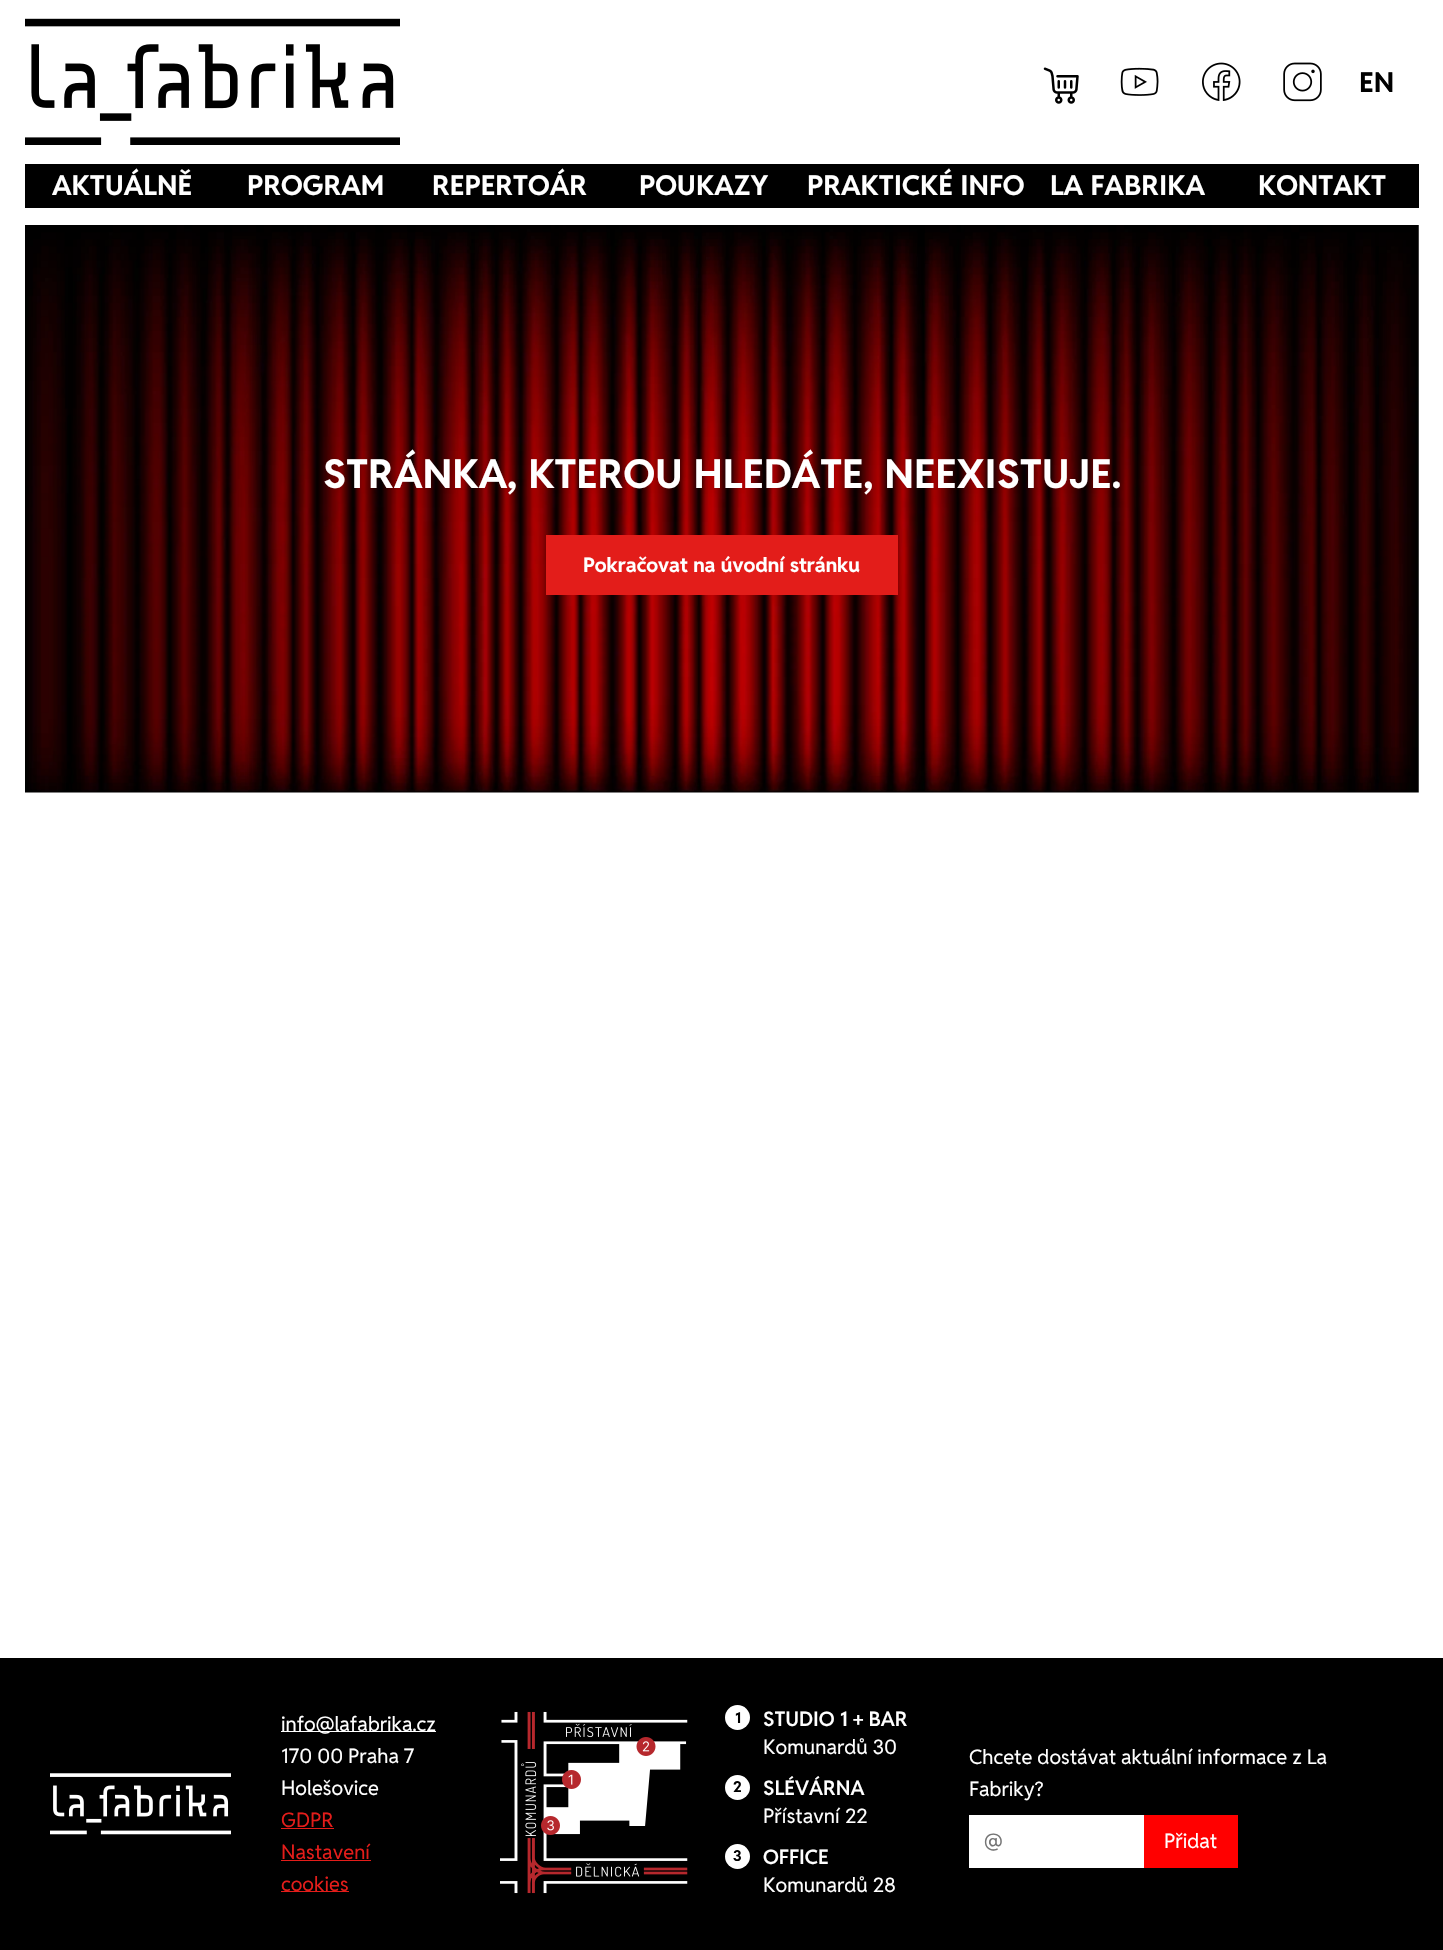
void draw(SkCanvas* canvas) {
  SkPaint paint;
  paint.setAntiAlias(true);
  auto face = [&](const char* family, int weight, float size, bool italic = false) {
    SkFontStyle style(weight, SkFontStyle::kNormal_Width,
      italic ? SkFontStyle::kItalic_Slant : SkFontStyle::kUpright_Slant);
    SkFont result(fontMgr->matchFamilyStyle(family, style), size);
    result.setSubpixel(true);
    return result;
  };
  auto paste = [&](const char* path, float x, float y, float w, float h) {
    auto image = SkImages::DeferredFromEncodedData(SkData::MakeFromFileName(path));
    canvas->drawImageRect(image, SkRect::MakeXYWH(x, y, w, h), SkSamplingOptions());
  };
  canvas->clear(0xffffffff);
  paste("img/1.png", 25, 18, 375, 127);
  paste("img/2.png", 1043, 67, 36, 37);
  paste("img/3.png", 1120, 67, 39, 29);
  paste("img/4.png", 1202, 62, 39, 39);
  paste("img/5.png", 1283, 62, 39, 40);
  paint.setColor(0xff000000);
  canvas->drawRect(SkRect::MakeXYWH(25, 164, 1394, 44), paint);
  paste("img/6.png", 25, 225, 1394, 568);
  paint.setColor(0xffe31d1a);
  canvas->drawRect(SkRect::MakeXYWH(546, 535, 352, 60), paint);
  paint.setColor(0xff000000);
  canvas->drawRect(SkRect::MakeXYWH(0, 1658, 1443, 292), paint);
  paste("img/7.png", 50, 1773, 181, 62);
  {
    const struct { float x, y, w, h; SkColor color; } items[] = {
      {281, 1731, 155, 1, 0xffffffff},
      {281, 1828, 53, 1, 0xffe31d1a},
      {281, 1860, 90, 1, 0xffe31d1a},
      {281, 1891, 68, 1, 0xffe31d1a},
    };
    for (auto [x, y, w, h, color] : items) {
      paint.setColor(color);
      canvas->drawRect(SkRect::MakeXYWH(x, y, w, h), paint);
    }
  }
  paste("img/8.png", 500, 1711, 188, 183);
  paint.setColor(0xffffffff);
  canvas->drawCircle(737.5f, 1717.5f, 12.5f, paint);
  canvas->drawCircle(737.5f, 1787.5f, 12.5f, paint);
  canvas->drawCircle(737.5f, 1856.5f, 12.5f, paint);
  canvas->drawRect(SkRect::MakeXYWH(969, 1815, 175, 53), paint);
  paint.setColor(0xffff0000);
  canvas->drawRect(SkRect::MakeXYWH(1144, 1815, 94, 53), paint);
  auto f0 = face("Reddit Sans", 700, 27.5f);
  paint.setColor(0xff000000);
  canvas->drawString("EN", 1359, 92, f0, paint);
  paint.setColor(0xffffffff);
  {
    const struct { const char* s; float x, y; } items[] = {
      {"AKTUÁLNĚ", 52, 195},
      {"PROGRAM", 247, 195},
      {"REPERTOÁR", 432, 195},
      {"POUKAZY", 639, 195},
      {"PRAKTICKÉ INFO", 807, 195},
      {"LA FABRIKA", 1050, 195},
      {"KONTAKT", 1258, 195},
    };
    for (auto [s, x, y] : items) {
      canvas->drawString(s, x, y, f0, paint);
    }
  }
  auto f1 = face("Reddit Sans", 700, 40);
  canvas->drawString("STRÁNKA, KTEROU HLEDÁTE, NEEXISTUJE.", 323, 488, f1, paint);
  auto f2 = face("Reddit Sans", 700, 20);
  canvas->drawString("Pokračovat na úvodní stránku", 583, 572, f2, paint);
  auto f3 = face("Reddit Sans", 400, 20);
  {
    const struct { const char* s; float x, y; } items[] = {
      {"info@lafabrika.cz", 281, 1731},
      {"170 00 Praha 7", 281, 1763},
      {"Holešovice", 281, 1795},
    };
    for (auto [s, x, y] : items) {
      canvas->drawString(s, x, y, f3, paint);
    }
  }
  paint.setColor(0xffe31d1a);
  {
    const struct { const char* s; float x, y; } items[] = {
      {"GDPR", 281, 1827},
      {"Nastavení", 281, 1859},
      {"cookies", 281, 1891},
    };
    for (auto [s, x, y] : items) {
      canvas->drawString(s, x, y, f3, paint);
    }
  }
  auto f4 = face("Reddit Sans", 700, 15);
  paint.setColor(0xff000000);
  canvas->drawString("1", 735, 1723, f4, paint);
  auto f5 = face("Reddit Sans", 600, 20);
  paint.setColor(0xffffffff);
  canvas->drawString("STUDIO 1 + BAR", 763, 1726, f5, paint);
  canvas->drawString("Komunardů 30", 763, 1754, f3, paint);
  paint.setColor(0xff000000);
  canvas->drawString("2", 733, 1792, f4, paint);
  paint.setColor(0xffffffff);
  canvas->drawString("SLÉVÁRNA", 763, 1795, f5, paint);
  canvas->drawString("Přístavní 22", 763, 1823, f3, paint);
  paint.setColor(0xff000000);
  canvas->drawString("3", 733, 1861, f4, paint);
  paint.setColor(0xffffffff);
  canvas->drawString("OFFICE", 763, 1864, f5, paint);
  {
    const struct { const char* s; float x, y; } items[] = {
      {"Komunardů 28", 763, 1892},
      {"Chcete dostávat aktuální informace z La", 969, 1764},
      {"Fabriky?", 969, 1796},
    };
    for (auto [s, x, y] : items) {
      canvas->drawString(s, x, y, f3, paint);
    }
  }
  paint.setColor(0xff757575);
  canvas->drawString("@", 984, 1848, f3, paint);
  paint.setColor(0xffffffff);
  canvas->drawString("Přidat", 1164, 1848, f3, paint);
}
